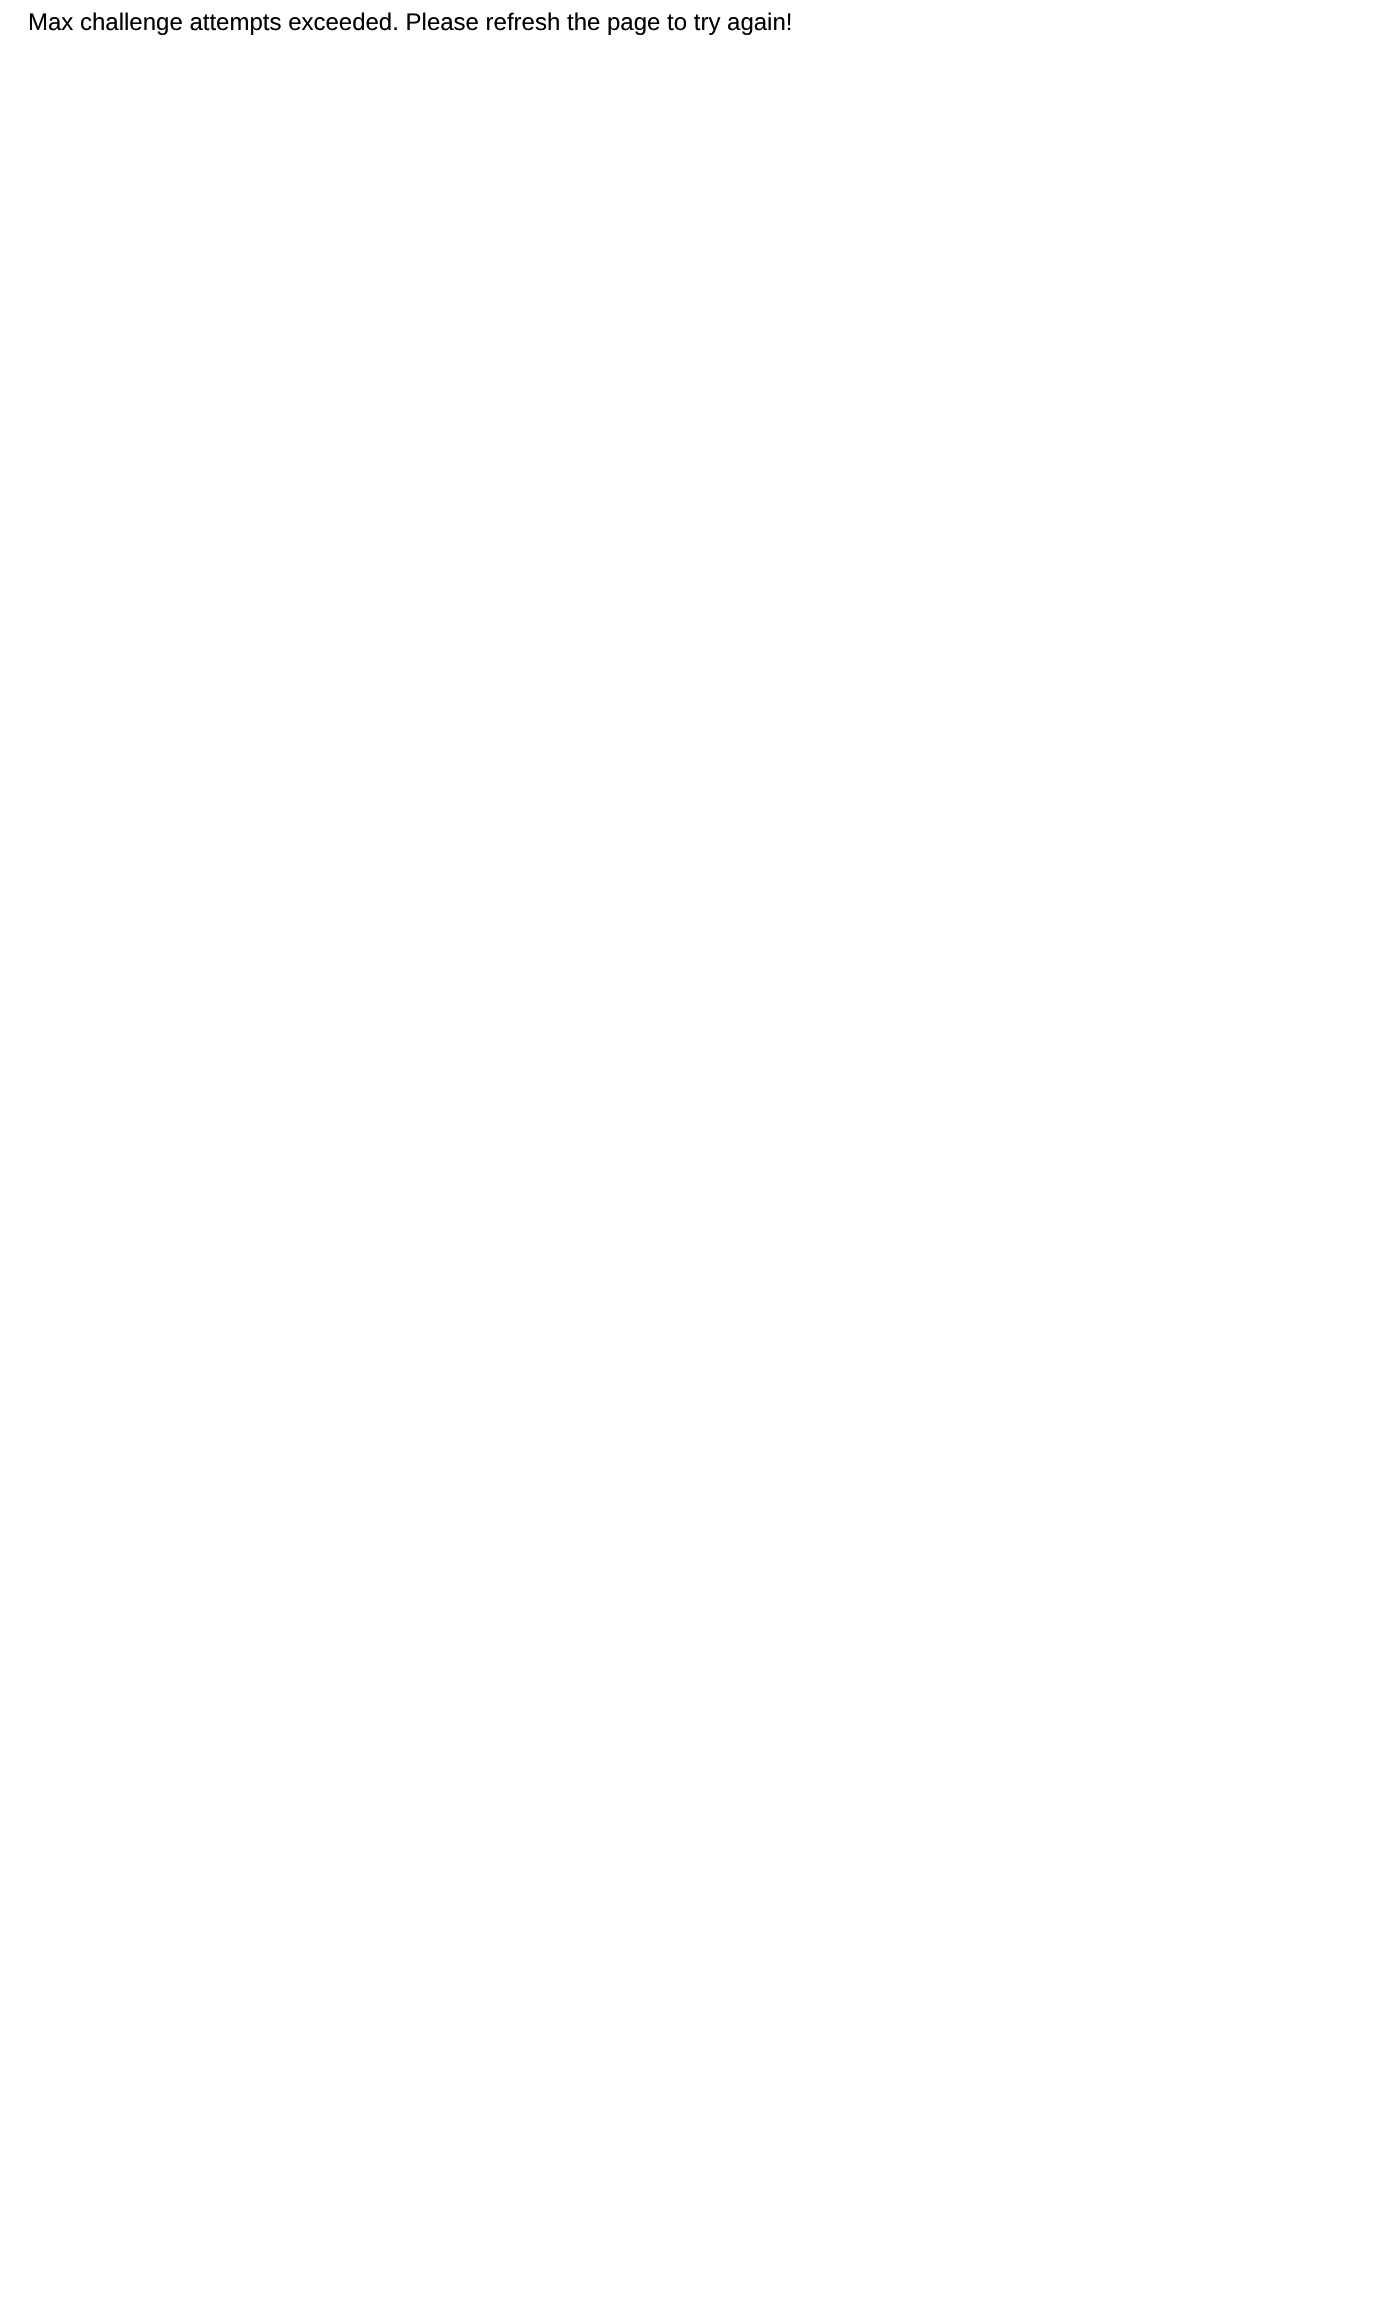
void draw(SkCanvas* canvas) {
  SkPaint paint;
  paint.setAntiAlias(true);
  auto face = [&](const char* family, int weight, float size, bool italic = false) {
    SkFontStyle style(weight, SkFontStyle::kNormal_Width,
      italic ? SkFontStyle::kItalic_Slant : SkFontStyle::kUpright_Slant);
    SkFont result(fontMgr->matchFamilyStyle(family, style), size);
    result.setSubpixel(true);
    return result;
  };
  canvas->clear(0xffffffff);
  auto f0 = face("Liberation Sans", 400, 24);
  paint.setColor(0xff000000);
  canvas->drawString("Max challenge attempts exceeded. Please refresh the page to try again!", 28, 30, f0, paint);
}
